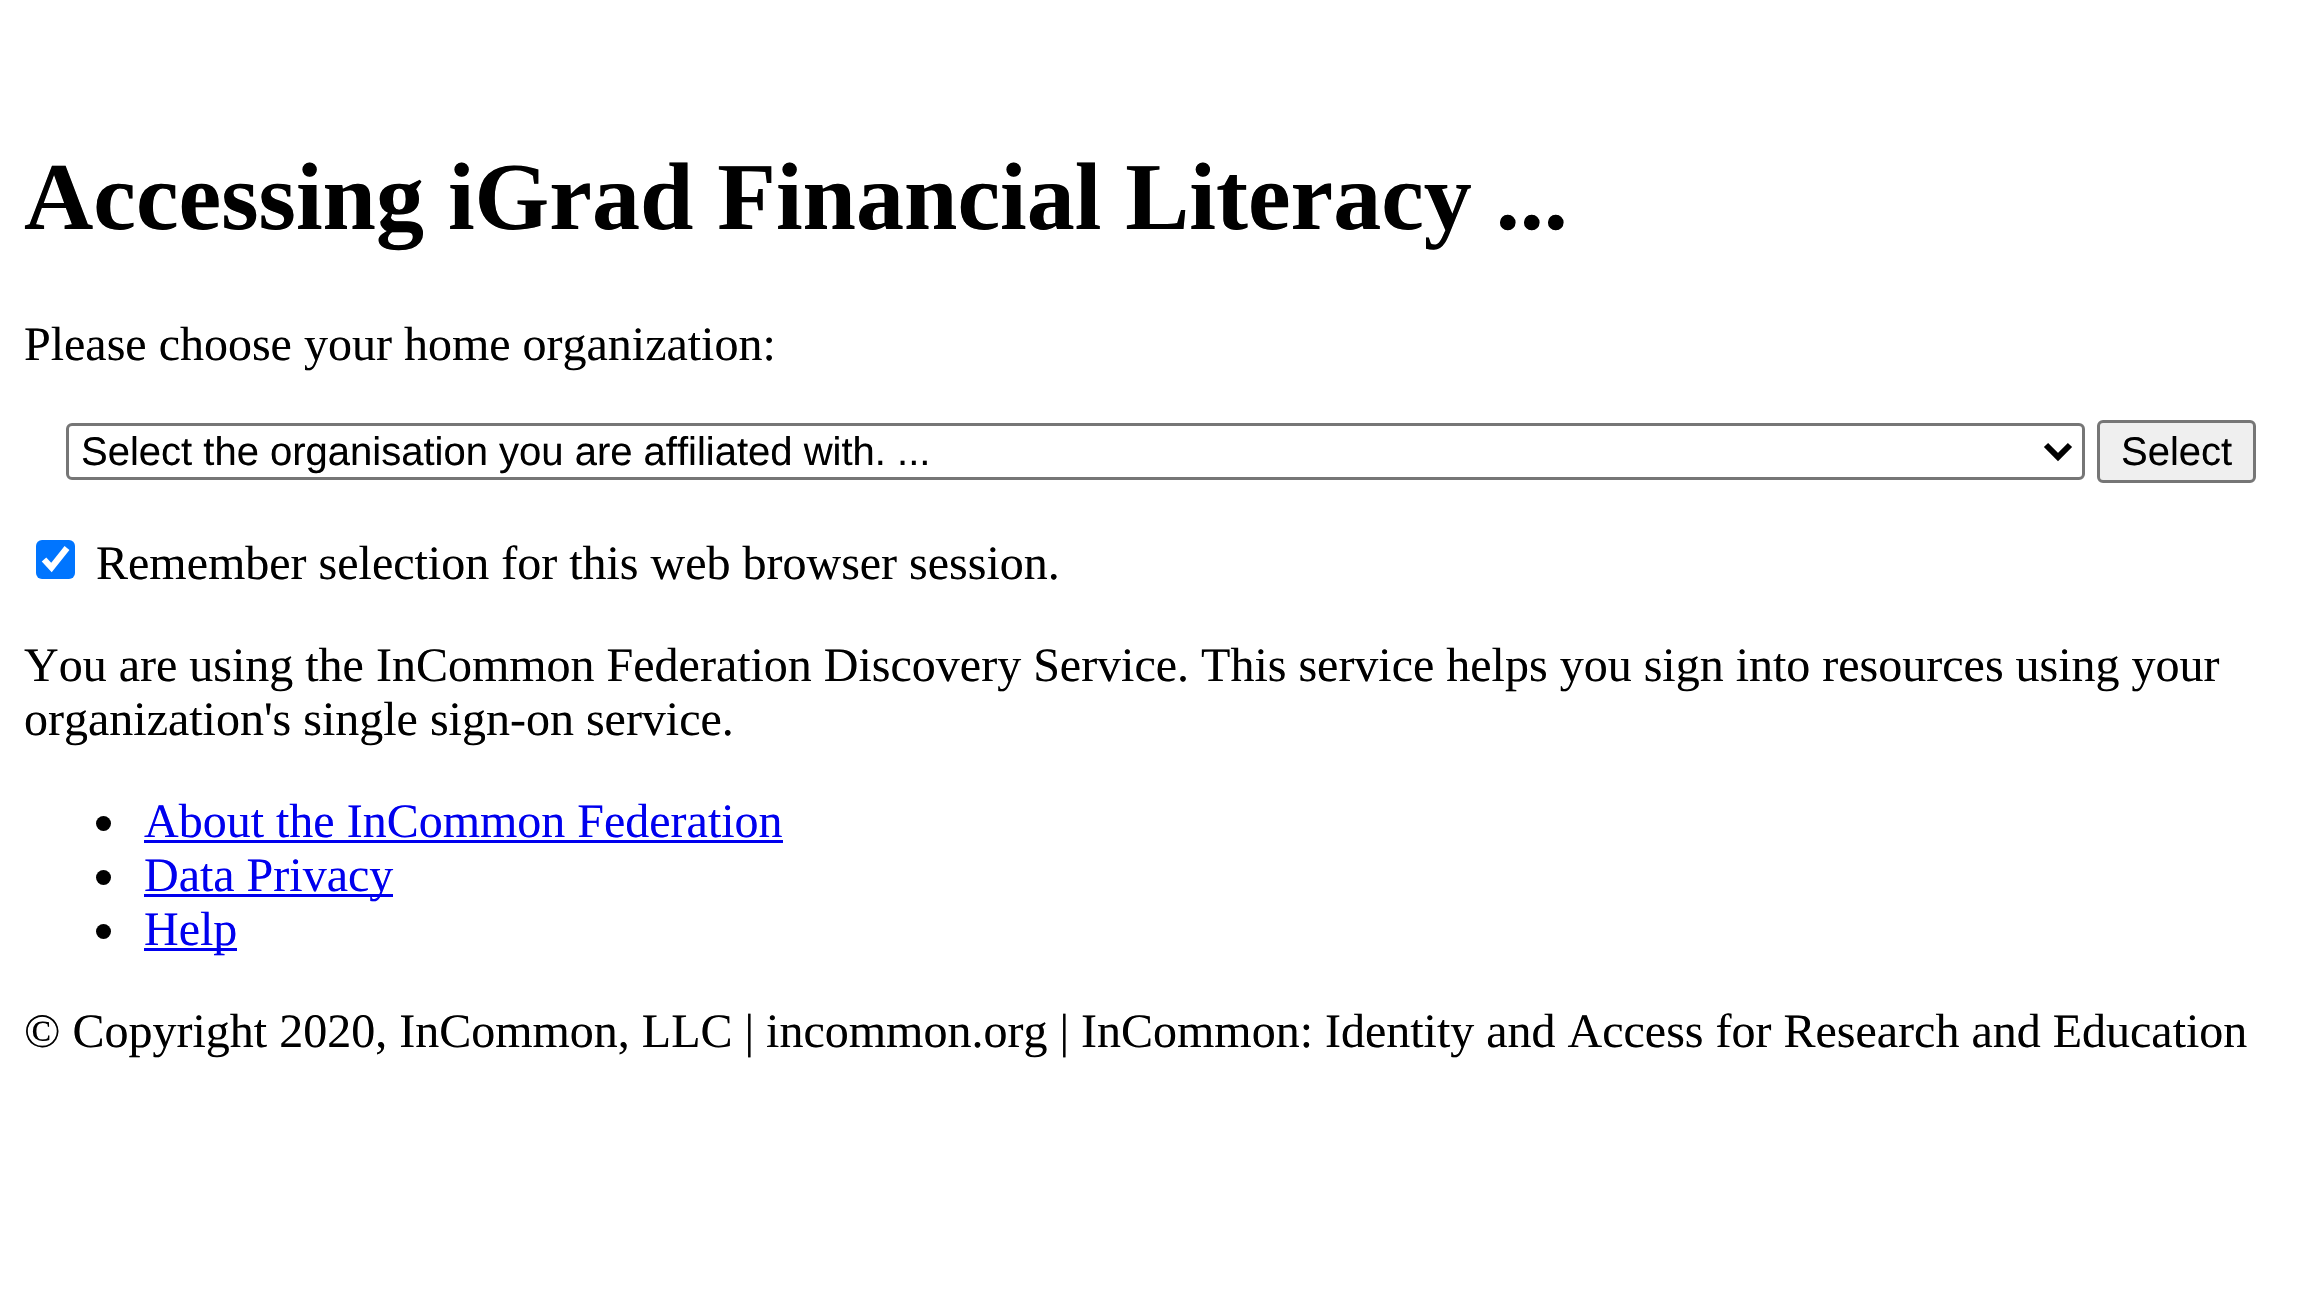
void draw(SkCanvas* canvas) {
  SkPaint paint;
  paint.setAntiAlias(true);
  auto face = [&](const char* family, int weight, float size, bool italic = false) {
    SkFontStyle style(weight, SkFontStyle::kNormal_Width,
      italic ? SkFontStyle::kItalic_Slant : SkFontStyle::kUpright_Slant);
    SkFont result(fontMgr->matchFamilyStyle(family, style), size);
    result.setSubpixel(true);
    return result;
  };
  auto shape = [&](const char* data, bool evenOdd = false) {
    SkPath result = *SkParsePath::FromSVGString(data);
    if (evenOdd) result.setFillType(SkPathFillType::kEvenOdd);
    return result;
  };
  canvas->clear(0xffffffff);
  paint.setStroke(true);
  paint.setStrokeWidth(3);
  paint.setColor(0xff767676);
  canvas->drawRoundRect(SkRect::MakeXYWH(67.5f, 424.5f, 2016, 54), 4.5f, 4.5f, paint);
  paint.setStrokeWidth(6);
  paint.setColor(0xff000000);
  canvas->drawPath(shape("M2046 445L2058 457L2070 445"), paint);
  paint.setStroke(false);
  paint.setColor(0xffefefef);
  canvas->drawRoundRect(SkRect::MakeXYWH(2098.5f, 421.5f, 156, 60), 4.5f, 4.5f, paint);
  paint.setStroke(true);
  paint.setStrokeWidth(3);
  paint.setColor(0xff767676);
  canvas->drawRoundRect(SkRect::MakeXYWH(2098.5f, 421.5f, 156, 60), 4.5f, 4.5f, paint);
  paint.setStroke(false);
  paint.setColor(0xff0075ff);
  canvas->drawRoundRect(SkRect::MakeXYWH(36, 540, 39, 39), 6, 6, paint);
  paint.setStroke(true);
  paint.setStrokeWidth(6.2f);
  paint.setColor(0xffffffff);
  canvas->drawPath(shape("M44 559.5L51.5 567.5L67 548"), paint);
  paint.setStroke(false);
  paint.setColor(0xff000000);
  canvas->drawCircle(103.5f, 823.5f, 7.5f, paint);
  paint.setColor(0xff0000ee);
  canvas->drawRect(SkRect::MakeXYWH(144, 840, 639, 3), paint);
  paint.setColor(0xff000000);
  canvas->drawCircle(103.5f, 877.5f, 7.5f, paint);
  paint.setColor(0xff0000ee);
  canvas->drawRect(SkRect::MakeXYWH(144, 894, 249, 3), paint);
  paint.setColor(0xff000000);
  canvas->drawCircle(103.5f, 931.5f, 7.5f, paint);
  paint.setColor(0xff0000ee);
  canvas->drawRect(SkRect::MakeXYWH(144, 948, 93, 3), paint);
  auto f0 = face("Liberation Serif", 700, 96);
  paint.setColor(0xff000000);
  canvas->drawString("Accessing iGrad Financial Literacy ...", 24, 229, f0, paint);
  auto f1 = face("Liberation Serif", 400, 48);
  canvas->drawString("Please choose your home organization:", 24, 360, f1, paint);
  auto f2 = face("Liberation Sans", 400, 40);
  canvas->drawString("Select the organisation you are affiliated with. ...", 81, 465, f2, paint);
  canvas->drawString("Select", 2121, 465, f2, paint);
  {
    const struct { const char* s; float x, y; } items[] = {
      {"Remember selection for this web browser session.", 96, 579},
      {"You are using the InCommon Federation Discovery Service. This service helps you sign into resources using your", 24, 681},
      {"organization's single sign-on service.", 24, 735},
    };
    for (auto [s, x, y] : items) {
      canvas->drawString(s, x, y, f1, paint);
    }
  }
  paint.setColor(0xff0000ee);
  {
    const struct { const char* s; float x, y; } items[] = {
      {"About the InCommon Federation", 144, 837},
      {"Data Privacy", 144, 891},
      {"Help", 144, 945},
    };
    for (auto [s, x, y] : items) {
      canvas->drawString(s, x, y, f1, paint);
    }
  }
  paint.setColor(0xff000000);
  canvas->drawString("© Copyright 2020, InCommon, LLC | incommon.org | InCommon: Identity and Access for Research and Education", 24, 1047, f1, paint);
}
